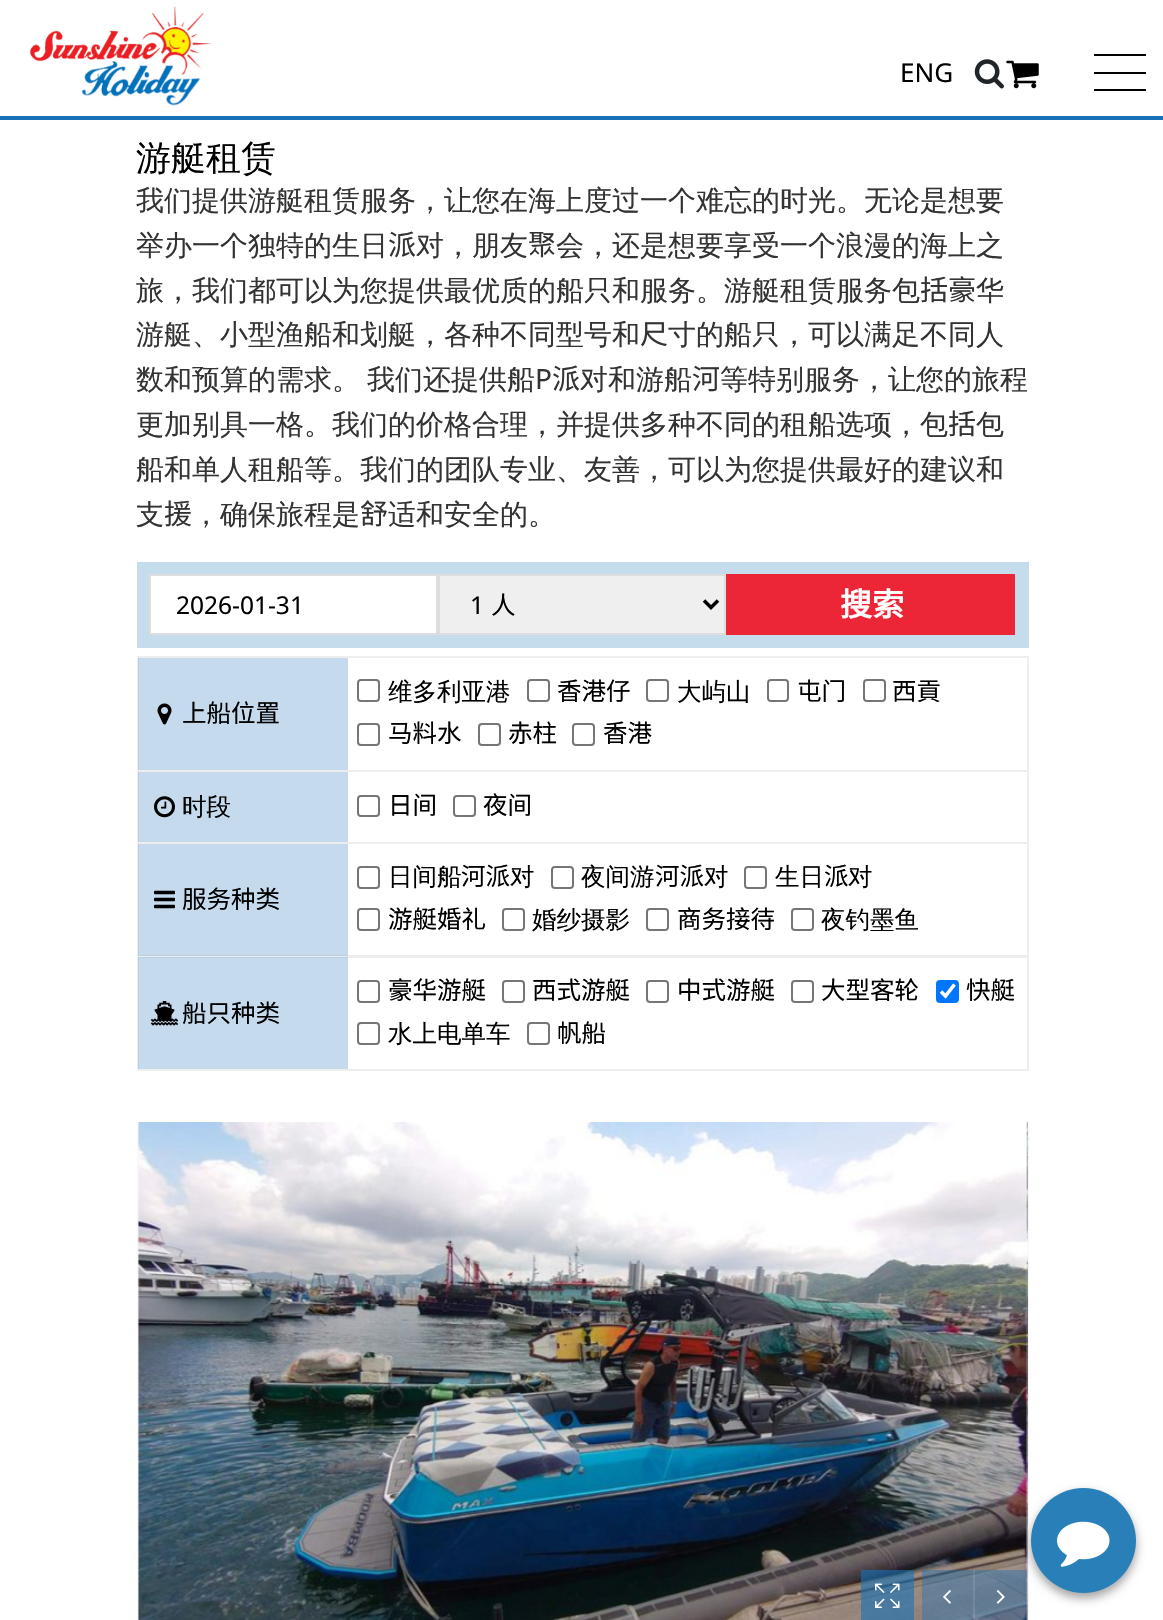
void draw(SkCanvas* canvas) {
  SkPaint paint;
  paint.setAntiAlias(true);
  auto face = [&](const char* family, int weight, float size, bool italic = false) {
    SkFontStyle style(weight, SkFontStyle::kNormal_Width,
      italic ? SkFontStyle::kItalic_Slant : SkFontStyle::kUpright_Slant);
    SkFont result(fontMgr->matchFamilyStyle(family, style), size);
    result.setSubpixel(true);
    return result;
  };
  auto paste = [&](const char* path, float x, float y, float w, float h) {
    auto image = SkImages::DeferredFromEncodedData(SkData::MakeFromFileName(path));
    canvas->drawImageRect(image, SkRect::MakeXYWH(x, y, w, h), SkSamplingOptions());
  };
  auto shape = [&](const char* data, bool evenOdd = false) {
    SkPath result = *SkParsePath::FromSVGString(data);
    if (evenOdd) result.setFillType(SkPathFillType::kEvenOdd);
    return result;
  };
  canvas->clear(0xffffffff);
  paint.setColor(0xff1871b7);
  canvas->drawRect(SkRect::MakeXYWH(0, 116, 1163, 4), paint);
  paste("img/1.png", 30, 6, 182, 100);
  {
    const struct { float x, y, w, h; SkColor color; } items[] = {
      {1094, 54, 52, 2, 0xff000000},
      {1094, 72, 52, 2, 0xff000000},
      {1094, 89, 52, 2, 0xff000000},
    };
    for (auto [x, y, w, h, color] : items) {
      paint.setColor(color);
      canvas->drawRect(SkRect::MakeXYWH(x, y, w, h), paint);
    }
  }
  paste("img/2.png", 974, 59, 30, 30);
  paste("img/3.png", 1006, 60, 33, 29);
  paint.setColor(0xffc5dced);
  canvas->drawRect(SkRect::MakeXYWH(137, 562, 892, 86), paint);
  paint.setColor(0xffffffff);
  canvas->drawRect(SkRect::MakeXYWH(150, 575, 287, 59), paint);
  paint.setStroke(true);
  paint.setStrokeWidth(2);
  paint.setColor(0xffdddddd);
  canvas->drawRect(SkRect::MakeXYWH(150, 575, 287, 59), paint);
  paint.setStroke(false);
  paint.setColor(0xffefefef);
  canvas->drawRect(SkRect::MakeXYWH(439, 575, 286, 59), paint);
  paint.setStroke(true);
  paint.setColor(0xffdddddd);
  canvas->drawRect(SkRect::MakeXYWH(439, 575, 286, 59), paint);
  paint.setStrokeWidth(3.5f);
  paint.setColor(0xff000000);
  canvas->drawPath(shape("M704 600.5L711 607.5L718 600.5"), paint);
  paint.setStroke(false);
  paint.setColor(0xffec2636);
  canvas->drawRect(SkRect::MakeXYWH(726, 574, 289, 61), paint);
  paint.setStroke(true);
  paint.setStrokeWidth(2);
  paint.setColor(0xffeeeeee);
  canvas->drawRect(SkRect::MakeXYWH(138, 657, 890, 114), paint);
  paint.setStroke(false);
  paint.setColor(0x401871b7);
  canvas->drawRect(SkRect::MakeXYWH(138, 658, 210, 112), paint);
  paste("img/4.png", 157, 703, 15, 22);
  paint.setStroke(true);
  paint.setColor(0xff767676);
  canvas->drawRoundRect(SkRect::MakeXYWH(358, 680, 21, 21), 3, 3, paint);
  canvas->drawRoundRect(SkRect::MakeXYWH(528, 680, 21, 21), 3, 3, paint);
  canvas->drawRoundRect(SkRect::MakeXYWH(647, 680, 21, 21), 3, 3, paint);
  canvas->drawRoundRect(SkRect::MakeXYWH(768, 680, 20, 21), 3, 3, paint);
  canvas->drawRoundRect(SkRect::MakeXYWH(864, 680, 21, 21), 3, 3, paint);
  canvas->drawRoundRect(SkRect::MakeXYWH(358, 724, 21, 21), 3, 3, paint);
  canvas->drawRoundRect(SkRect::MakeXYWH(479, 724, 21, 21), 3, 3, paint);
  canvas->drawRoundRect(SkRect::MakeXYWH(573, 724, 21, 21), 3, 3, paint);
  paint.setColor(0xffeeeeee);
  canvas->drawRect(SkRect::MakeXYWH(138, 771, 890, 72), paint);
  paint.setStroke(false);
  paint.setColor(0x401871b7);
  canvas->drawRect(SkRect::MakeXYWH(138, 772, 210, 70), paint);
  paste("img/5.png", 154, 796, 21, 22);
  paint.setStroke(true);
  paint.setColor(0xff767676);
  canvas->drawRoundRect(SkRect::MakeXYWH(358, 796, 21, 20), 3, 3, paint);
  canvas->drawRoundRect(SkRect::MakeXYWH(454, 796, 21, 20), 3, 3, paint);
  paint.setColor(0xffeeeeee);
  canvas->drawRect(SkRect::MakeXYWH(138, 843, 890, 113), paint);
  paint.setStroke(false);
  paint.setColor(0x401871b7);
  canvas->drawRect(SkRect::MakeXYWH(138, 844, 210, 112), paint);
  paste("img/6.png", 154, 890, 21, 19);
  paint.setStroke(true);
  paint.setColor(0xff767676);
  canvas->drawRoundRect(SkRect::MakeXYWH(358, 867, 21, 21), 3, 3, paint);
  canvas->drawRoundRect(SkRect::MakeXYWH(552, 867, 21, 21), 3, 3, paint);
  canvas->drawRoundRect(SkRect::MakeXYWH(745, 867, 21, 21), 3, 3, paint);
  canvas->drawRoundRect(SkRect::MakeXYWH(358, 909, 21, 21), 3, 3, paint);
  canvas->drawRoundRect(SkRect::MakeXYWH(503, 909, 21, 21), 3, 3, paint);
  canvas->drawRoundRect(SkRect::MakeXYWH(647, 909, 21, 21), 3, 3, paint);
  canvas->drawRoundRect(SkRect::MakeXYWH(792, 909, 21, 21), 3, 3, paint);
  paint.setColor(0xffeeeeee);
  canvas->drawRect(SkRect::MakeXYWH(138, 957, 890, 113), paint);
  paint.setStroke(false);
  paint.setColor(0x401871b7);
  canvas->drawRect(SkRect::MakeXYWH(138, 957, 210, 112), paint);
  paste("img/7.png", 150, 1001, 29, 25);
  paint.setStroke(true);
  paint.setColor(0xff767676);
  canvas->drawRoundRect(SkRect::MakeXYWH(358, 981, 21, 21), 3, 3, paint);
  canvas->drawRoundRect(SkRect::MakeXYWH(503, 981, 21, 21), 3, 3, paint);
  canvas->drawRoundRect(SkRect::MakeXYWH(647, 981, 21, 21), 3, 3, paint);
  canvas->drawRoundRect(SkRect::MakeXYWH(792, 981, 21, 21), 3, 3, paint);
  paint.setStroke(false);
  paint.setColor(0xff0075ff);
  canvas->drawRoundRect(SkRect::MakeXYWH(936, 980, 23, 23), 4, 4, paint);
  paint.setStroke(true);
  paint.setStrokeWidth(3.6f);
  paint.setColor(0xffffffff);
  canvas->drawPath(shape("M941 991.5L945.5 996L954.5 984.5"), paint);
  paint.setStrokeWidth(2);
  paint.setColor(0xff767676);
  canvas->drawRoundRect(SkRect::MakeXYWH(358, 1023, 21, 21), 3, 3, paint);
  canvas->drawRoundRect(SkRect::MakeXYWH(528, 1023, 21, 21), 3, 3, paint);
  paint.setStroke(false);
  paint.setColor(0xfff7f7f7);
  canvas->drawRect(SkRect::MakeXYWH(1027, 1127, 2, 493), paint);
  canvas->drawRect(SkRect::MakeXYWH(137, 1127, 2, 493), paint);
  paste("img/8.png", 138, 1122, 890, 498);
  paint.setColor(0x991871b7);
  canvas->drawRect(SkRect::MakeXYWH(861, 1570, 53, 50), paint);
  paste("img/9.png", 875, 1583, 25, 25);
  paste("img/10.png", 1026, 1122, 2, 498);
  paint.setColor(0x661871b7);
  canvas->drawRect(SkRect::MakeXYWH(922, 1570, 53, 50), paint);
  paint.setColor(0x1affffff);
  canvas->drawRect(SkRect::MakeXYWH(973, 1570, 2, 50), paint);
  paste("img/11.png", 943, 1590, 8, 14);
  paint.setColor(0x661871b7);
  canvas->drawRect(SkRect::MakeXYWH(975, 1570, 52, 50), paint);
  paste("img/12.png", 996, 1590, 9, 14);
  paint.setColor(0x3b000000);
  paint.setMaskFilter(SkMaskFilter::MakeBlur(kNormal_SkBlurStyle, 5));
  canvas->drawRoundRect(SkRect::MakeXYWH(1031, 1493, 105, 105), 52.5f, 52.5f, paint);
  paint.setMaskFilter(nullptr);
  paint.setColor(0x29000000);
  paint.setMaskFilter(SkMaskFilter::MakeBlur(kNormal_SkBlurStyle, 5));
  canvas->drawRoundRect(SkRect::MakeXYWH(1031, 1493, 105, 105), 52.5f, 52.5f, paint);
  paint.setMaskFilter(nullptr);
  paint.setColor(0xff2980b9);
  canvas->drawCircle(1083.5f, 1540.5f, 52.5f, paint);
  paste("img/13.png", 1057, 1521, 53, 46);
  auto f0 = face("Noto Sans", 400, 26);
  paint.setColor(0xff000000);
  canvas->drawString("ENG", 900, 82, f0, paint);
  auto f1 = face("WenQuanYi Zen Hei", 500, 35);
  canvas->drawString("游艇租赁", 136, 170, f1, paint);
  auto f2 = face("WenQuanYi Zen Hei", 500, 28);
  paint.setColor(0xff333333);
  canvas->drawString("我们提供游艇租赁服务，让您在海上度过一个难忘的时光。无论是想要", 136, 210, f2, paint);
  canvas->drawString("举办一个独特的生日", 136, 255, f2, paint);
  auto f3 = face("Noto Sans TC", 100, 28);
  canvas->drawString("派", 388, 255, f3, paint);
  canvas->drawString("对，朋友", 416, 255, f2, paint);
  canvas->drawString("聚", 528, 255, f3, paint);
  canvas->drawString("会，还是想要享受一个浪漫的海上之", 556, 255, f2, paint);
  canvas->drawString("旅，我们都可以为您提供最优质的船只和服务。游艇租赁服务包", 136, 300, f2, paint);
  canvas->drawString("括豪", 920, 300, f3, paint);
  canvas->drawString("华", 976, 300, f2, paint);
  canvas->drawString("游艇、小型渔船和划艇，各种不同型号和", 136, 344, f2, paint);
  canvas->drawString("尺", 640, 344, f3, paint);
  {
    const struct { const char* s; float x, y; } items[] = {
      {"寸的船只，可以满足不同人", 668, 344},
      {"数和预算的需求。", 136, 389},
      {"我们还提供船", 367, 389},
    };
    for (auto [s, x, y] : items) {
      canvas->drawString(s, x, y, f2, paint);
    }
  }
  auto f4 = face("Noto Sans", 400, 28);
  canvas->drawString("P", 535, 389, f4, paint);
  canvas->drawString("派", 552, 389, f3, paint);
  canvas->drawString("对和游船", 580, 389, f2, paint);
  canvas->drawString("河", 692, 389, f3, paint);
  canvas->drawString("等特别服务，让您的旅程", 720, 389, f2, paint);
  canvas->drawString("更加别具一格。我们的价格合理，并提供多种不同的租船选项，包", 136, 434, f2, paint);
  canvas->drawString("括", 948, 434, f3, paint);
  {
    const struct { const char* s; float x, y; } items[] = {
      {"包", 976, 434},
      {"船和单人租船等。我们的团队专业、友善，可以为您提供最好的建议和", 136, 479},
      {"支", 136, 524},
    };
    for (auto [s, x, y] : items) {
      canvas->drawString(s, x, y, f2, paint);
    }
  }
  canvas->drawString("援", 164, 524, f3, paint);
  canvas->drawString("，确保旅程是", 192, 524, f2, paint);
  canvas->drawString("舒", 360, 524, f3, paint);
  canvas->drawString("适和安全的。", 388, 524, f2, paint);
  auto f5 = face("Noto Sans", 400, 24.5f);
  paint.setColor(0xff000000);
  canvas->drawString("2026-01-31", 176, 614, f5, paint);
  canvas->drawString("1", 470, 614, f5, paint);
  auto f6 = face("Noto Sans TC", 100, 24.5f);
  canvas->drawString("人", 491, 614, f6, paint);
  auto f7 = face("Noto Sans TC", 700, 32);
  paint.setColor(0xffffffff);
  canvas->drawString("搜索", 840, 616, f7, paint);
  paint.setColor(0xff000000);
  canvas->drawString("上船位置", 182, 722, f6, paint);
  auto f8 = face("WenQuanYi Zen Hei", 500, 24.5f);
  canvas->drawString("维多利亚港", 388, 700, f8, paint);
  canvas->drawString("香港仔", 557, 700, f6, paint);
  canvas->drawString("大屿山", 677, 700, f8, paint);
  {
    const struct { const char* s; float x, y; } items[] = {
      {"屯门", 797, 700},
      {"西貢", 892, 700},
      {"马料水", 388, 742},
      {"赤柱", 508, 742},
      {"香港", 603, 742},
    };
    for (auto [s, x, y] : items) {
      canvas->drawString(s, x, y, f6, paint);
    }
  }
  canvas->drawString("时段", 182, 815, f8, paint);
  {
    const struct { const char* s; float x, y; } items[] = {
      {"日间", 388, 814},
      {"夜间", 483, 814},
      {"服务种类", 182, 908},
    };
    for (auto [s, x, y] : items) {
      canvas->drawString(s, x, y, f6, paint);
    }
  }
  canvas->drawString("日间船", 388, 885, f8, paint);
  canvas->drawString("河派", 461, 885, f6, paint);
  canvas->drawString("对", 510, 885, f8, paint);
  canvas->drawString("夜间游", 581, 885, f8, paint);
  canvas->drawString("河派", 655, 885, f6, paint);
  canvas->drawString("对", 704, 885, f8, paint);
  canvas->drawString("生日", 775, 885, f8, paint);
  canvas->drawString("派", 824, 885, f6, paint);
  canvas->drawString("对", 848, 885, f8, paint);
  canvas->drawString("游艇婚礼", 388, 928, f6, paint);
  canvas->drawString("婚纱摄影", 532, 928, f8, paint);
  canvas->drawString("商务接待", 677, 928, f6, paint);
  canvas->drawString("夜钓墨鱼", 821, 928, f8, paint);
  {
    const struct { const char* s; float x, y; } items[] = {
      {"船只种类", 182, 1022},
      {"豪华游艇", 388, 999},
      {"西式游艇", 532, 999},
      {"中式游艇", 677, 999},
      {"大型客轮", 821, 999},
      {"快艇", 966, 999},
    };
    for (auto [s, x, y] : items) {
      canvas->drawString(s, x, y, f6, paint);
    }
  }
  canvas->drawString("水上电单车", 388, 1042, f8, paint);
  canvas->drawString("帆船", 557, 1042, f6, paint);
}
